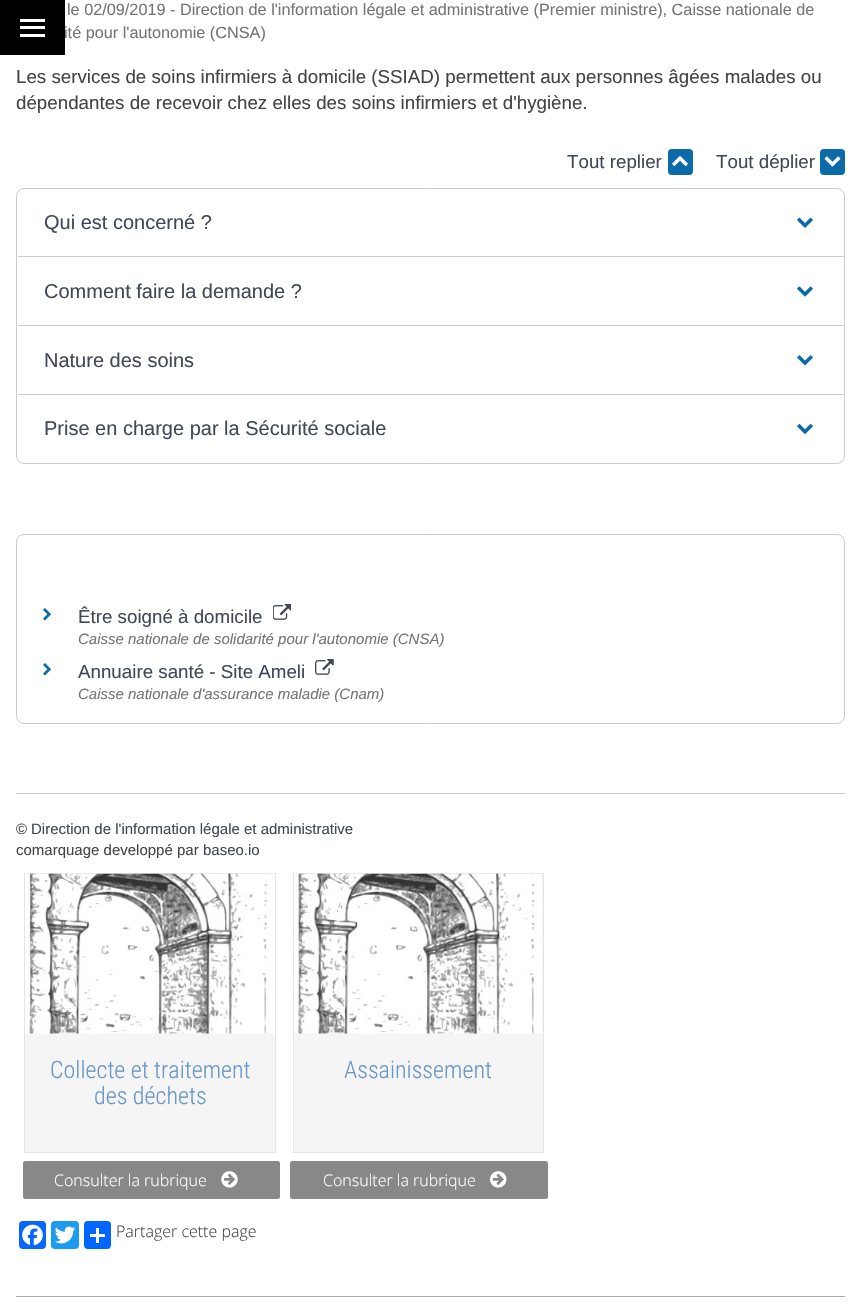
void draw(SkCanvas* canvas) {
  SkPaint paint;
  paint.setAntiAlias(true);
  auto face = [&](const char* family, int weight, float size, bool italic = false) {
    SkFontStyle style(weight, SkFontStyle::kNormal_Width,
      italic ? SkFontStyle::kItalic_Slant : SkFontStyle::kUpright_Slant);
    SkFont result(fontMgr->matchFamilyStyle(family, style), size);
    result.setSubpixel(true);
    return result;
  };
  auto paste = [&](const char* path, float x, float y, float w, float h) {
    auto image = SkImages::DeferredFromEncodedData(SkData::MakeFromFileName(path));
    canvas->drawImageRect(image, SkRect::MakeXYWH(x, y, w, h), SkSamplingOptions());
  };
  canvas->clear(0xffffffff);
  paint.setColor(0xff0b6ba8);
  canvas->drawRoundRect(SkRect::MakeXYWH(668, 149, 25, 26), 4, 4, paint);
  paste("img/1.png", 672, 156, 16, 10);
  canvas->drawRoundRect(SkRect::MakeXYWH(820, 149, 25, 26), 4, 4, paint);
  paste("img/2.png", 824, 156, 17, 11);
  paint.setStroke(true);
  paint.setStrokeWidth(1);
  paint.setColor(0xffcccccc);
  canvas->drawRoundRect(SkRect::MakeXYWH(16.5f, 188.5f, 828, 275), 7.5f, 7.5f, paint);
  paste("img/3.png", 797, 217, 16, 11);
  paint.setStroke(false);
  canvas->drawRect(SkRect::MakeXYWH(18, 256, 826, 1), paint);
  paste("img/4.png", 797, 286, 16, 11);
  canvas->drawRect(SkRect::MakeXYWH(18, 325, 826, 1), paint);
  paste("img/5.png", 797, 355, 16, 11);
  canvas->drawRect(SkRect::MakeXYWH(18, 394, 826, 1), paint);
  paste("img/6.png", 797, 424, 16, 10);
  paint.setStroke(true);
  canvas->drawRoundRect(SkRect::MakeXYWH(16.5f, 534.5f, 828, 189), 7.5f, 7.5f, paint);
  paste("img/7.png", 43, 608, 8, 13);
  paste("img/8.png", 273, 604, 18, 16);
  paste("img/7.png", 43, 663, 8, 13);
  paste("img/9.png", 315, 659, 19, 16);
  paint.setStroke(false);
  canvas->drawRect(SkRect::MakeXYWH(16, 793, 829, 1), paint);
  paint.setColor(0xfff5f5f5);
  canvas->drawRect(SkRect::MakeXYWH(25, 1033, 250, 119), paint);
  paint.setStroke(true);
  paint.setColor(0xffe5e5e5);
  canvas->drawRect(SkRect::MakeXYWH(24.5f, 873.5f, 251, 279), paint);
  paste("img/10.png", 25, 873, 250, 161);
  paint.setStroke(false);
  paint.setColor(0xff888888);
  canvas->drawRoundRect(SkRect::MakeXYWH(23, 1161, 257, 38), 2.5f, 2.5f, paint);
  paste("img/11.png", 221, 1171, 17, 17);
  paint.setColor(0xfff5f5f5);
  canvas->drawRect(SkRect::MakeXYWH(293.5f, 873.5f, 250, 279), paint);
  paint.setStroke(true);
  paint.setColor(0xffe5e5e5);
  canvas->drawRect(SkRect::MakeXYWH(293.5f, 873.5f, 250, 279), paint);
  paste("img/12.png", 294, 873, 248, 161);
  paint.setStroke(false);
  paint.setColor(0xff888888);
  canvas->drawRoundRect(SkRect::MakeXYWH(290, 1161, 258, 38), 2.5f, 2.5f, paint);
  paste("img/13.png", 490, 1171, 17, 17);
  paint.setColor(0xff0866ff);
  canvas->drawRoundRect(SkRect::MakeXYWH(19, 1221, 27, 28), 4, 4, paint);
  paste("img/14.png", 22, 1224, 21, 22);
  paint.setColor(0xff1d9bf0);
  canvas->drawRoundRect(SkRect::MakeXYWH(51, 1221, 28, 28), 4, 4, paint);
  paste("img/15.png", 54, 1226, 22, 18);
  paint.setColor(0xff0166ff);
  canvas->drawRoundRect(SkRect::MakeXYWH(84, 1221, 27, 28), 4, 4, paint);
  {
    const struct { float x, y, w, h; SkColor color; } items[] = {
      {96, 1228, 3, 15, 0xffffffff},
      {90, 1234, 15, 3, 0xffffffff},
      {16, 1296, 829, 1, 0xffaaaaaa},
    };
    for (auto [x, y, w, h, color] : items) {
      paint.setColor(color);
      canvas->drawRect(SkRect::MakeXYWH(x, y, w, h), paint);
    }
  }
  auto f0 = face("Liberation Sans", 400, 16.25f);
  paint.setColor(0xff757575);
  canvas->drawString("le 02/09/2019 - Direction de l'information légale et administrative (Premier ministre), Caisse nationale de", 67, 15, f0, paint);
  canvas->drawString("ité pour l'autonomie (CNSA)", 64, 38, f0, paint);
  {
    const struct { float x, y, w, h; SkColor color; } items[] = {
      {0, 0, 65, 55, 0xff000000},
      {20, 34, 25, 3, 0xffffffff},
      {20, 19, 25, 3, 0xffffffff},
      {20, 26, 25, 3, 0xffffffff},
    };
    for (auto [x, y, w, h, color] : items) {
      paint.setColor(color);
      canvas->drawRect(SkRect::MakeXYWH(x, y, w, h), paint);
    }
  }
  auto f1 = face("Liberation Sans", 400, 18.75f);
  paint.setColor(0xff444444);
  canvas->drawString("Les services de soins infirmiers à domicile (SSIAD) permettent aux personnes âgées malades ou", 16, 83, f1, paint);
  canvas->drawString("dépendantes de recevoir chez elles des soins infirmiers et d'hygiène.", 16, 109, f1, paint);
  paint.setColor(0xff414856);
  canvas->drawString("Tout replier", 567, 168, f1, paint);
  canvas->drawString("Tout déplier", 716, 168, f1, paint);
  auto f2 = face("Liberation Sans", 400, 20);
  {
    const struct { const char* s; float x, y; } items[] = {
      {"Qui est concerné ?", 44, 229},
      {"Comment faire la demande ?", 44, 298},
      {"Nature des soins", 44, 367},
      {"Prise en charge par la Sécurité sociale", 44, 435},
    };
    for (auto [s, x, y] : items) {
      canvas->drawString(s, x, y, f2, paint);
    }
  }
  canvas->drawString("Être soigné à domicile", 78, 623, f1, paint);
  auto f3 = face("Liberation Sans", 400, 15, true);
  paint.setColor(0xff757575);
  canvas->drawString("Caisse nationale de solidarité pour l'autonomie (CNSA)", 78, 644, f3, paint);
  paint.setColor(0xff414856);
  canvas->drawString("Annuaire santé - Site Ameli", 78, 678, f1, paint);
  paint.setColor(0xff757575);
  canvas->drawString("Caisse nationale d'assurance maladie (Cnam)", 78, 699, f3, paint);
  auto f4 = face("Liberation Sans", 400, 15);
  paint.setColor(0xff444444);
  canvas->drawString("©", 16, 834, f4, paint);
  paint.setColor(0xff414856);
  canvas->drawString("Direction de l'information légale et administrative", 31, 834, f4, paint);
  paint.setColor(0xff444444);
  canvas->drawString("comarquage developpé par", 16, 855, f4, paint);
  paint.setColor(0xff414856);
  canvas->drawString("baseo.io", 203, 855, f4, paint);
  auto f5 = face("Roboto Condensed", 300, 24);
  paint.setColor(0xff6796c9);
  canvas->drawString("Collecte et traitement", 50, 1078, f5, paint);
  canvas->drawString("des déchets", 94, 1104, f5, paint);
  auto f6 = face("Open Sans", 300, 16);
  paint.setColor(0xffffffff);
  canvas->drawString("Consulter la rubrique", 54, 1186, f6, paint);
  paint.setColor(0xff6796c9);
  canvas->drawString("Assainissement", 344, 1078, f5, paint);
  paint.setColor(0xffffffff);
  canvas->drawString("Consulter la rubrique", 323, 1186, f6, paint);
  paint.setColor(0xff444444);
  canvas->drawString("Partager cette page", 116, 1237, f6, paint);
}
